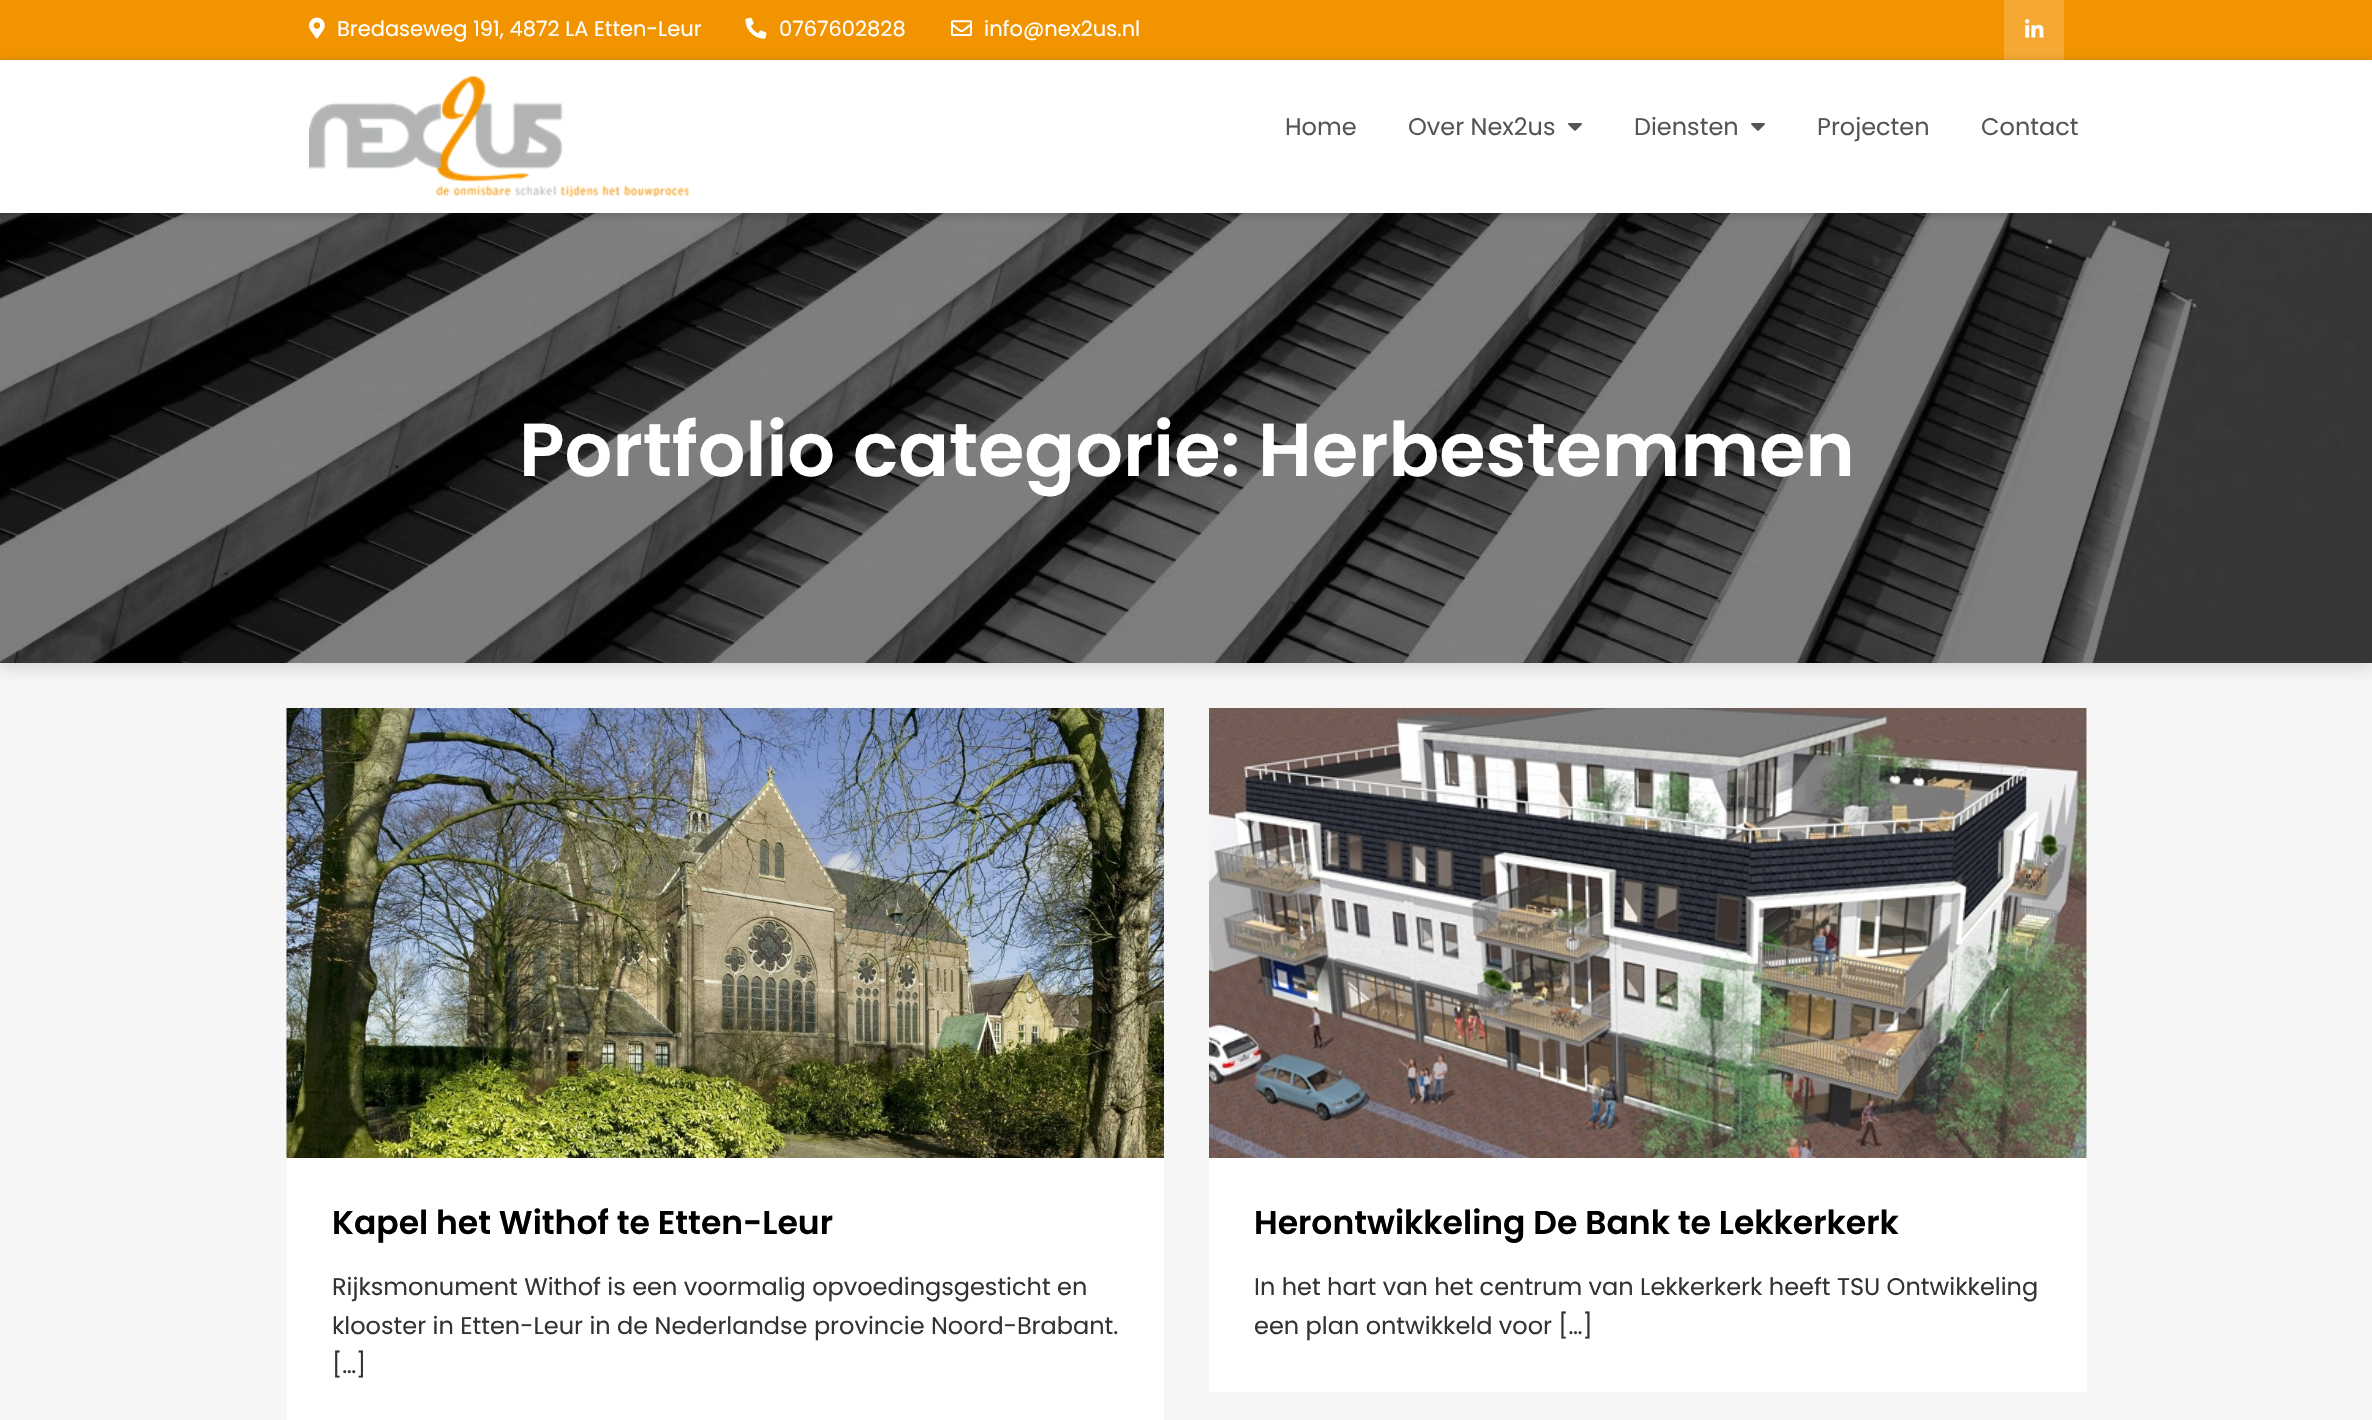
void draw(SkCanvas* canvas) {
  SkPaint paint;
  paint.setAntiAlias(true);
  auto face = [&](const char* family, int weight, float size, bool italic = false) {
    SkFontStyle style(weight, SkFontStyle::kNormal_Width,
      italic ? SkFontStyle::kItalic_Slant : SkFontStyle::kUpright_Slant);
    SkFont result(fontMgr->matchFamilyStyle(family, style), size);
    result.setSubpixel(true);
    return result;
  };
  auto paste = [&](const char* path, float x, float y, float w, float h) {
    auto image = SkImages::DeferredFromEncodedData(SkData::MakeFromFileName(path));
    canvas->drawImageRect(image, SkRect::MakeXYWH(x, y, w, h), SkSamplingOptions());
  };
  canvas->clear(0xfff6f6f6);
  paint.setColor(0xfff29400);
  canvas->drawRect(SkRect::MakeXYWH(0, 0, 2372, 60), paint);
  paste("img/1.png", 309, 17, 16, 22);
  paste("img/2.png", 745, 17, 22, 22);
  paste("img/3.png", 951, 20, 21, 16);
  paint.setColor(0xfff5a933);
  canvas->drawRect(SkRect::MakeXYWH(2004, 0, 60, 60), paint);
  paste("img/4.png", 2025, 19, 19, 19);
  paste("img/7.png", 0, 213, 2372, 450);
  paint.setColor(0x47202124);
  paint.setMaskFilter(SkMaskFilter::MakeBlur(kNormal_SkBlurStyle, 4.5f));
  canvas->drawRect(SkRect::MakeXYWH(0, 62, 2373, 153), paint);
  paint.setMaskFilter(nullptr);
  canvas->save();
  canvas->clipRect(SkRect::MakeXYWH(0, 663, 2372, 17));
  paint.setColor(0x478b8c8d);
  paint.setMaskFilter(SkMaskFilter::MakeBlur(kNormal_SkBlurStyle, 7.5f));
  canvas->drawRect(SkRect::MakeXYWH(0, 219, 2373, 450), paint);
  paint.setMaskFilter(nullptr);
  canvas->restore();
  paint.setColor(0xffffffff);
  canvas->drawRect(SkRect::MakeXYWH(0, 60, 2372, 153), paint);
  paste("img/5.png", 309, 76, 380, 121);
  paste("img/6.png", 1568, 123, 14, 8);
  paste("img/6.png", 1751, 123, 14, 8);
  canvas->drawRect(SkRect::MakeXYWH(287, 1158, 877, 262), paint);
  paste("img/8.png", 286, 708, 878, 450);
  canvas->drawRect(SkRect::MakeXYWH(1209, 708, 878, 684), paint);
  paste("img/9.png", 1209, 708, 878, 450);
  auto f0 = face("Poppins", 400, 21);
  {
    const struct { const char* s; float x, y; } items[] = {
      {"Bredaseweg 191, 4872 LA Etten-Leur", 337, 36},
      {"0767602828", 779, 36},
      {"info@nex2us.nl", 984, 36},
    };
    for (auto [s, x, y] : items) {
      canvas->drawString(s, x, y, f0, paint);
    }
  }
  auto f1 = face("Poppins", 400, 24);
  paint.setColor(0xff555555);
  {
    const struct { const char* s; float x, y; } items[] = {
      {"Home", 1285, 135},
      {"Over Nex2us", 1408, 135},
      {"Diensten", 1634, 135},
      {"Projecten", 1817, 135},
      {"Contact", 1981, 135},
    };
    for (auto [s, x, y] : items) {
      canvas->drawString(s, x, y, f1, paint);
    }
  }
  auto f2 = face("Poppins", 600, 75);
  paint.setColor(0xffffffff);
  canvas->drawString("Portfolio categorie: Herbestemmen", 519, 476, f2, paint);
  auto f3 = face("Poppins", 600, 33);
  paint.setColor(0xff000000);
  canvas->drawString("Kapel het Withof te Etten-Leur", 332, 1234, f3, paint);
  paint.setColor(0xff333333);
  {
    const struct { const char* s; float x, y; } items[] = {
      {"Rijksmonument Withof is een voormalig opvoedingsgesticht en", 332, 1295},
      {"klooster in Etten-Leur in de Nederlandse provincie Noord-Brabant.", 332, 1334},
      {"[…]", 332, 1373},
    };
    for (auto [s, x, y] : items) {
      canvas->drawString(s, x, y, f1, paint);
    }
  }
  paint.setColor(0xff000000);
  canvas->drawString("Herontwikkeling De Bank te Lekkerkerk", 1254, 1234, f3, paint);
  paint.setColor(0xff333333);
  canvas->drawString("In het hart van het centrum van Lekkerkerk heeft TSU Ontwikkeling", 1254, 1295, f1, paint);
  canvas->drawString("een plan ontwikkeld voor […]", 1254, 1334, f1, paint);
}
